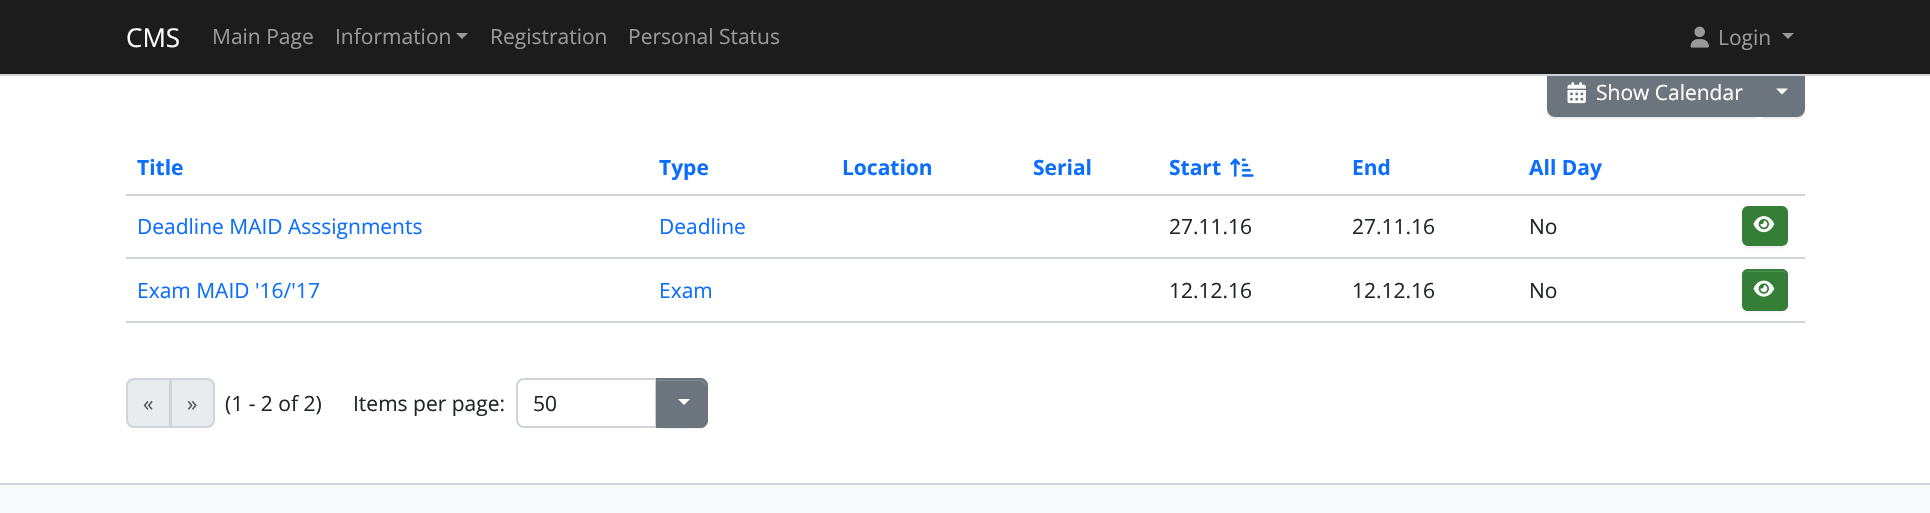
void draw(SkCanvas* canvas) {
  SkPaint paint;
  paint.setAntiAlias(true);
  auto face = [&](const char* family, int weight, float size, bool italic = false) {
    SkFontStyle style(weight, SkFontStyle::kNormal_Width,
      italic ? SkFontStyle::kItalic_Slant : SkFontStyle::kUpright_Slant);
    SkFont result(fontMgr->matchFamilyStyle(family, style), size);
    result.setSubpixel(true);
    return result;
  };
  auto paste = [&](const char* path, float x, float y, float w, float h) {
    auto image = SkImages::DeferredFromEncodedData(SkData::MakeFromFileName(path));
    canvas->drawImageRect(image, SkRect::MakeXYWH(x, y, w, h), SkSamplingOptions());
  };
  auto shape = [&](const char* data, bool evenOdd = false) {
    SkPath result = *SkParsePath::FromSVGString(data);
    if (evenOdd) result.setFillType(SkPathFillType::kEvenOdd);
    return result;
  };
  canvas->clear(0xfff8f9fa);
  paint.setColor(0xffffffff);
  canvas->drawRect(SkRect::MakeXYWH(0, 76, 1930, 407), paint);
  paint.setColor(0x12000000);
  paint.setMaskFilter(SkMaskFilter::MakeBlur(kNormal_SkBlurStyle, 1));
  canvas->drawRoundRect(SkRect::MakeXYWH(1547, 68, 213, 51), 8, 8, paint);
  paint.setMaskFilter(nullptr);
  paint.setColor(0xff6c757d);
  canvas->drawPath(shape("M1555 67H1759V116H1555C1551 116 1548 113 1548 109V74C1548 70 1551 67 1555 67Z"), paint);
  paint.setStroke(true);
  paint.setStrokeWidth(2);
  canvas->drawPath(shape("M1555 67H1759V116H1555C1551 116 1548 113 1548 109V74C1548 70 1551 67 1555 67Z"), paint);
  paint.setStroke(false);
  paint.setColor(0x12000000);
  paint.setMaskFilter(SkMaskFilter::MakeBlur(kNormal_SkBlurStyle, 1));
  canvas->drawRoundRect(SkRect::MakeXYWH(1758, 68, 47, 51), 8, 8, paint);
  paint.setMaskFilter(nullptr);
  paint.setColor(0xff6c757d);
  canvas->drawPath(shape("M1759 67H1797C1801 67 1804 70 1804 74V109C1804 113 1801 116 1797 116H1759Z"), paint);
  paint.setStroke(true);
  canvas->drawPath(shape("M1759 67H1797C1801 67 1804 70 1804 74V109C1804 113 1801 116 1797 116H1759Z"), paint);
  paint.setStroke(false);
  paint.setColor(0xff1c1c1c);
  canvas->drawRect(SkRect::MakeXYWH(0, 0, 1930, 74), paint);
  paint.setColor(0xffced4da);
  canvas->drawRect(SkRect::MakeXYWH(0, 74, 1930, 2), paint);
  paint.setColor(0xff999999);
  canvas->drawPath(shape("M456 33H468L462 39Z"), paint);
  paste("img/1.png", 1690, 26, 19, 22);
  canvas->drawPath(shape("M1782 33H1794L1788 39Z"), paint);
  paste("img/2.png", 1567, 82, 19, 22);
  paint.setColor(0xffffffff);
  canvas->drawPath(shape("M1776 88.5H1788L1782 94.5Z"), paint);
  paste("img/3.png", 1230, 158, 24, 19);
  paint.setColor(0xffced4da);
  canvas->drawRect(SkRect::MakeXYWH(126, 194, 1679, 2), paint);
  canvas->drawRect(SkRect::MakeXYWH(126, 257, 1679, 2), paint);
  paint.setColor(0x12000000);
  paint.setMaskFilter(SkMaskFilter::MakeBlur(kNormal_SkBlurStyle, 1));
  canvas->drawRoundRect(SkRect::MakeXYWH(1742, 207, 46, 41), 6, 6, paint);
  paint.setMaskFilter(nullptr);
  paint.setColor(0xff357e38);
  canvas->drawRoundRect(SkRect::MakeXYWH(1743, 207, 44, 38), 5, 5, paint);
  paint.setStroke(true);
  canvas->drawRoundRect(SkRect::MakeXYWH(1743, 207, 44, 38), 5, 5, paint);
  paste("img/4.png", 1753, 216, 22, 17);
  paint.setStroke(false);
  paint.setColor(0xffced4da);
  canvas->drawRect(SkRect::MakeXYWH(126, 321, 1679, 2), paint);
  paint.setColor(0x12000000);
  paint.setMaskFilter(SkMaskFilter::MakeBlur(kNormal_SkBlurStyle, 1));
  canvas->drawRoundRect(SkRect::MakeXYWH(1742, 270, 46, 42), 6, 6, paint);
  paint.setMaskFilter(nullptr);
  paint.setColor(0xff357e38);
  canvas->drawRoundRect(SkRect::MakeXYWH(1742, 269, 46, 42), 6, 6, paint);
  paint.setColor(0xff539156);
  canvas->drawPath(shape("M1747 272H1777C1789 272 1786 273 1786 286V308C1788 306 1787 302 1787 300V290C1787 269 1791 270 1771 270H1753C1748 270 1743 269 1743 275C1743 273 1745 272 1747 272Z"), paint);
  paint.setStroke(true);
  paint.setColor(0xff357e38);
  canvas->drawRoundRect(SkRect::MakeXYWH(1743, 270, 44, 40), 5, 5, paint);
  paste("img/5.png", 1753, 280, 22, 17);
  paint.setStroke(false);
  paint.setColor(0xffe9ecef);
  canvas->drawPath(shape("M134 379H170V427H134C130 427 127 424 127 420V386C127 382 130 379 134 379Z"), paint);
  paint.setStroke(true);
  paint.setColor(0xffced4da);
  canvas->drawPath(shape("M134 379H170V427H134C130 427 127 424 127 420V386C127 382 130 379 134 379Z"), paint);
  paint.setStroke(false);
  paint.setColor(0xffe9ecef);
  canvas->drawPath(shape("M171 379H207C211 379 214 382 214 386V420C214 424 211 427 207 427H171Z"), paint);
  paint.setStroke(true);
  paint.setColor(0xffced4da);
  canvas->drawPath(shape("M171 379H207C211 379 214 382 214 386V420C214 424 211 427 207 427H171Z"), paint);
  canvas->drawPath(shape("M524 379H656V427H524C520 427 517 424 517 420V386C517 382 520 379 524 379Z"), paint);
  paint.setStroke(false);
  paint.setColor(0x12000000);
  paint.setMaskFilter(SkMaskFilter::MakeBlur(kNormal_SkBlurStyle, 1));
  canvas->drawRoundRect(SkRect::MakeXYWH(656, 380, 52, 49), 8, 8, paint);
  paint.setMaskFilter(nullptr);
  paint.setColor(0xff6c757d);
  canvas->drawPath(shape("M656 378H700C704.5 378 708 381.5 708 386V420C708 424.5 704.5 428 700 428H656Z"), paint);
  paint.setColor(0xff828a91);
  canvas->drawPath(shape("M657 381H701C708 383 706 394 706 398V424C706 423 707 421 707 420V386C707 383 704 380 701 380H657Z"), paint);
  paint.setStroke(true);
  paint.setColor(0xff6c757d);
  canvas->drawPath(shape("M657 379H700C704 379 707 382 707 386V420C707 424 704 427 700 427H657Z"), paint);
  paint.setStroke(false);
  paint.setColor(0xffffffff);
  canvas->drawPath(shape("M678 399H690L684 405Z"), paint);
  paint.setColor(0xffced4da);
  canvas->drawRect(SkRect::MakeXYWH(0, 483, 1930, 2), paint);
  auto f0 = face("Open Sans", 400, 26);
  paint.setColor(0xffffffff);
  canvas->drawString("CMS", 126, 47, f0, paint);
  auto f1 = face("Open Sans", 400, 21);
  paint.setColor(0xff999999);
  {
    const struct { const char* s; float x, y; } items[] = {
      {"Main Page", 212, 44},
      {"Information", 335, 44},
      {"Registration", 490, 44},
      {"Personal Status", 628, 44},
      {"Login", 1718, 45},
    };
    for (auto [s, x, y] : items) {
      canvas->drawString(s, x, y, f1, paint);
    }
  }
  paint.setColor(0xffffffff);
  canvas->drawString("Show Calendar", 1596, 100, f1, paint);
  auto f2 = face("Open Sans", 700, 21);
  paint.setColor(0xff0d6efd);
  {
    const struct { const char* s; float x, y; } items[] = {
      {"Title", 137, 175},
      {"Type", 659, 175},
      {"Location", 842, 175},
      {"Serial", 1033, 175},
      {"Start", 1169, 175},
      {"End", 1352, 175},
      {"All Day", 1529, 175},
    };
    for (auto [s, x, y] : items) {
      canvas->drawString(s, x, y, f2, paint);
    }
  }
  canvas->drawString("Deadline MAID Asssignments", 137, 234, f1, paint);
  canvas->drawString("Deadline", 659, 234, f1, paint);
  paint.setColor(0xff212529);
  {
    const struct { const char* s; float x, y; } items[] = {
      {"27.11.16", 1169, 234},
      {"27.11.16", 1352, 234},
      {"No", 1529, 234},
    };
    for (auto [s, x, y] : items) {
      canvas->drawString(s, x, y, f1, paint);
    }
  }
  paint.setColor(0xff0d6efd);
  canvas->drawString("Exam MAID '16/'17", 137, 298, f1, paint);
  canvas->drawString("Exam", 659, 298, f1, paint);
  paint.setColor(0xff212529);
  {
    const struct { const char* s; float x, y; } items[] = {
      {"12.12.16", 1169, 298},
      {"12.12.16", 1352, 298},
      {"No", 1529, 298},
    };
    for (auto [s, x, y] : items) {
      canvas->drawString(s, x, y, f1, paint);
    }
  }
  paint.setColor(0xff53575b);
  canvas->drawString("«", 143, 411, f1, paint);
  canvas->drawString("»", 187, 411, f1, paint);
  paint.setColor(0xff212529);
  {
    const struct { const char* s; float x, y; } items[] = {
      {"(1 - 2 of 2)", 225, 411},
      {"Items per page:", 353, 411},
      {"50", 533, 411},
    };
    for (auto [s, x, y] : items) {
      canvas->drawString(s, x, y, f1, paint);
    }
  }
}
